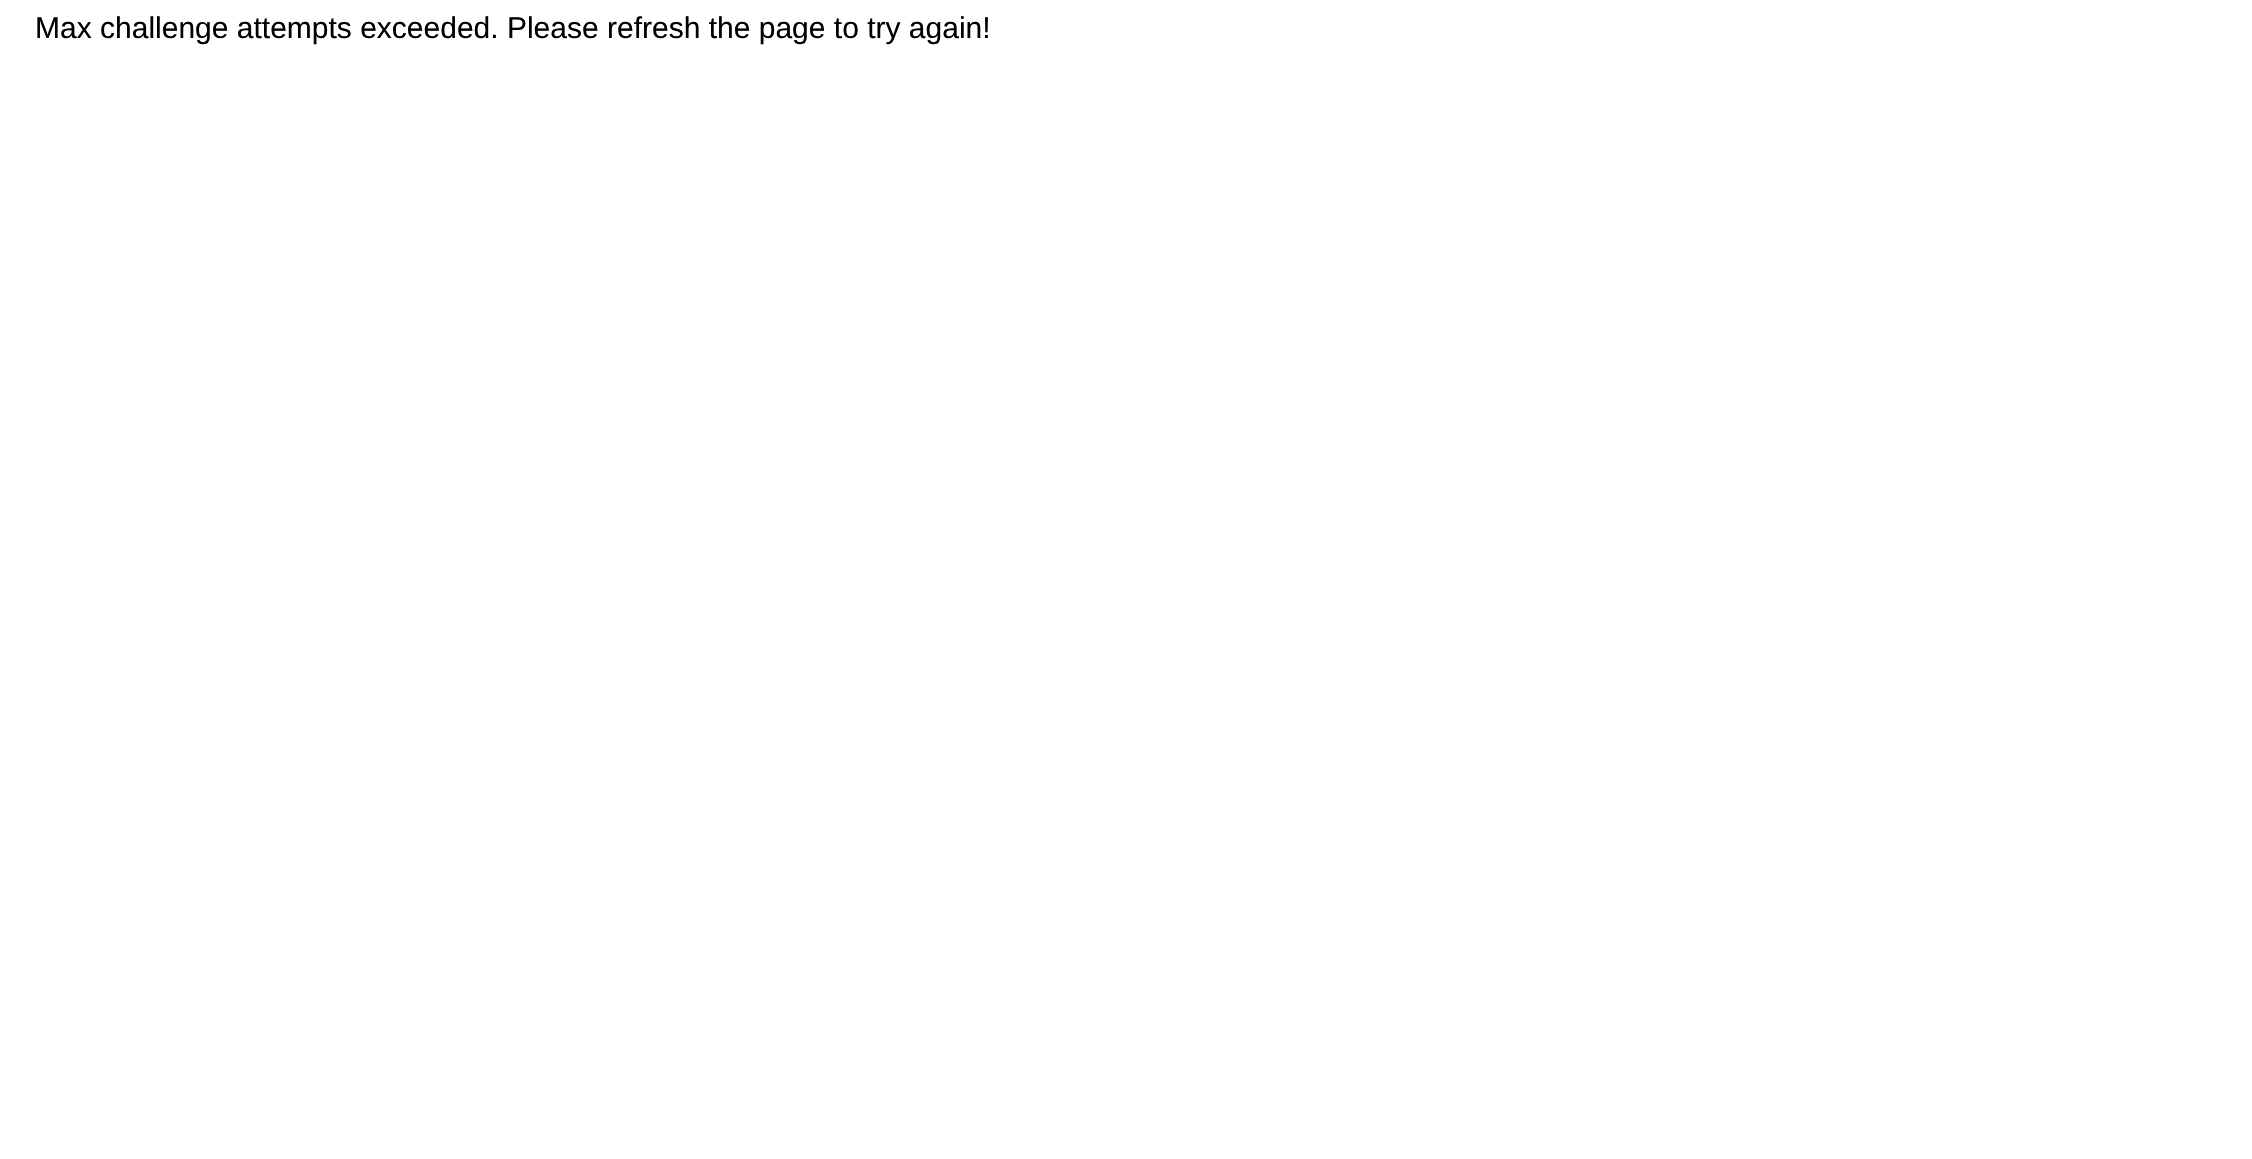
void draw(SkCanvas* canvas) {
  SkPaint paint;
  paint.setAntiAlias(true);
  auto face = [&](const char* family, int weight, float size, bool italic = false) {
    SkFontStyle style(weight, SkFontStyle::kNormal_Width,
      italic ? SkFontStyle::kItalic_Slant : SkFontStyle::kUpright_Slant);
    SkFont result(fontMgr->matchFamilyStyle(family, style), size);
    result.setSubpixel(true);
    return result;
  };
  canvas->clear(0xffffffff);
  auto f0 = face("Liberation Sans", 400, 30);
  paint.setColor(0xff000000);
  canvas->drawString("Max challenge attempts exceeded. Please refresh the page to try again!", 35, 38, f0, paint);
}
